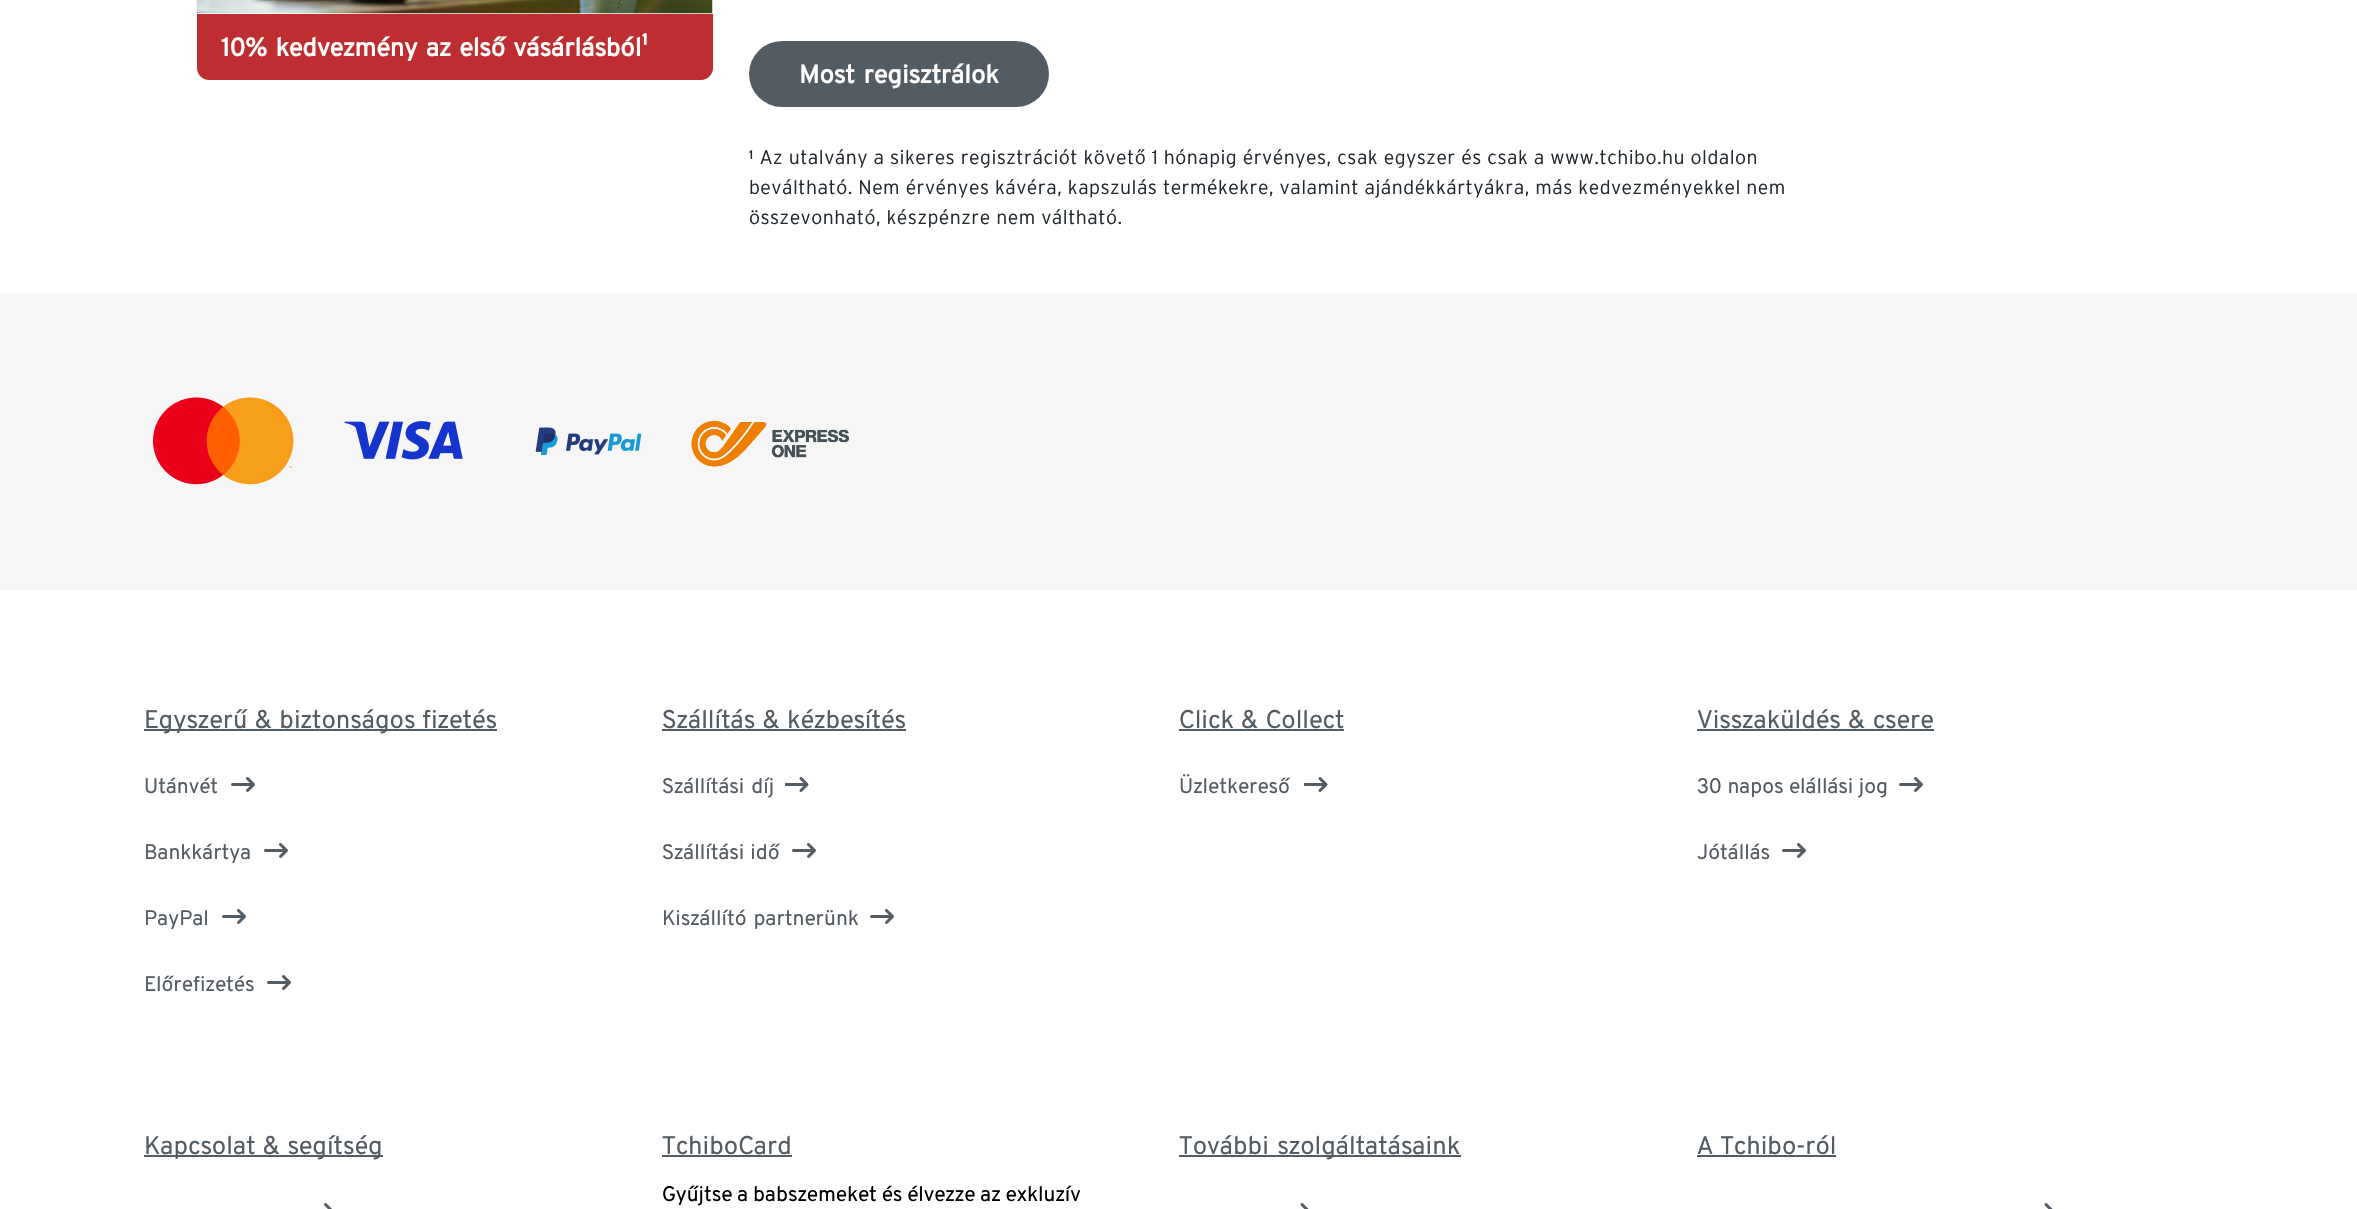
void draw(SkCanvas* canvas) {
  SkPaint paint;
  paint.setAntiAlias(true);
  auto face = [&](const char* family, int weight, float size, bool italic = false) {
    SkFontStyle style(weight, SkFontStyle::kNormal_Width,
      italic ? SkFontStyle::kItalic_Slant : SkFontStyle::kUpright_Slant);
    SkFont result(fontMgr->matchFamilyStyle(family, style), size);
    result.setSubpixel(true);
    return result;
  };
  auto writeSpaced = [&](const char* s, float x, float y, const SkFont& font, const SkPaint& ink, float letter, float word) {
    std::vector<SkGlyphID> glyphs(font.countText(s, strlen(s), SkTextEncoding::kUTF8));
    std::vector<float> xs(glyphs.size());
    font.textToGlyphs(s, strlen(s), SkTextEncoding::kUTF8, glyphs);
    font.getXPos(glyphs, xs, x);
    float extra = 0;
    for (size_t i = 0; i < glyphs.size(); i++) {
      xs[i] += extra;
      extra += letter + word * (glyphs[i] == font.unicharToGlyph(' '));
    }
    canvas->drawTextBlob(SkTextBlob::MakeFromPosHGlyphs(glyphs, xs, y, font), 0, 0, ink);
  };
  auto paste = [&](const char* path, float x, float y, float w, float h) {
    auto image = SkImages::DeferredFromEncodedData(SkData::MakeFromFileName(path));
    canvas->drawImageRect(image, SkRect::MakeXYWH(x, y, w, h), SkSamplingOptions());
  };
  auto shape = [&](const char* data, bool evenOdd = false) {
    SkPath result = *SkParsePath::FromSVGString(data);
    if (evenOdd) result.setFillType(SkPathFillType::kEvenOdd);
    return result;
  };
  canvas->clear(0xffffffff);
  paste("img/1.png", 196, 0, 517, 14);
  paint.setColor(0xffbe2d2f);
  canvas->drawPath(shape("M197 14H713V68C713 74.5 707.5 80 701 80H209C202.5 80 197 74.5 197 68Z"), paint);
  paint.setColor(0xff545c63);
  canvas->drawRoundRect(SkRect::MakeXYWH(749, 41, 300, 66), 33, 33, paint);
  paint.setColor(0xfff6f6f6);
  canvas->drawRect(SkRect::MakeXYWH(0, 293, 2357, 297), paint);
  paste("img/2.png", 153, 397, 141, 88);
  paste("img/3.png", 344, 421, 119, 39);
  paste("img/4.png", 535, 427, 107, 28);
  paste("img/5.png", 691, 420, 158, 47);
  paint.setColor(0xff545c63);
  canvas->drawRect(SkRect::MakeXYWH(144, 729, 353, 2), paint);
  paste("img/6.png", 231, 777, 24, 15);
  paste("img/6.png", 264, 843, 24, 15);
  paste("img/6.png", 222, 909, 24, 15);
  paste("img/6.png", 267, 975, 24, 15);
  canvas->drawRect(SkRect::MakeXYWH(662, 729, 244, 2), paint);
  paste("img/7.png", 785, 777, 24, 15);
  paste("img/6.png", 792, 843, 24, 15);
  paste("img/6.png", 870, 909, 24, 15);
  canvas->drawRect(SkRect::MakeXYWH(1179, 729, 165, 2), paint);
  paste("img/7.png", 1304, 777, 24, 15);
  canvas->drawRect(SkRect::MakeXYWH(1697, 729, 237, 2), paint);
  paste("img/6.png", 1899, 777, 24, 15);
  paste("img/6.png", 1782, 843, 24, 15);
  canvas->drawRect(SkRect::MakeXYWH(144, 1155, 239, 2), paint);
  paste("img/8.png", 324, 1203, 8, 6);
  canvas->drawRect(SkRect::MakeXYWH(662, 1155, 130, 2), paint);
  canvas->drawRect(SkRect::MakeXYWH(1179, 1155, 282, 2), paint);
  paste("img/9.png", 1300, 1203, 9, 6);
  canvas->drawRect(SkRect::MakeXYWH(1697, 1155, 139, 2), paint);
  paste("img/9.png", 2044, 1203, 9, 6);
  auto f0 = face("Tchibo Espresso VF", 700, 25.5f);
  paint.setColor(0xffffffff);
  writeSpaced("10% kedvezmény az első vásárlásból¹", 221, 56, f0, paint, 0, 2.5f);
  writeSpaced("Most regisztrálok", 799, 83, f0, paint, 0, 3);
  auto f1 = face("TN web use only", 300, 19.5f);
  paint.setColor(0xff21292f);
  {
    const struct { const char* s; float x, y; } items[] = {
      {"¹ Az utalvány a sikeres regisztrációt követő 1 hónapig érvényes, csak egyszer és csak a www.tchibo.hu oldalon", 749, 164},
      {"beváltható. Nem érvényes kávéra, kapszulás termékekre, valamint ajándékkártyákra, más kedvezményekkel nem", 749, 194},
      {"összevonható, készpénzre nem váltható.", 749, 224},
    };
    for (auto [s, x, y] : items) {
      writeSpaced(s, x, y, f1, paint, 0.45f, 0);
    }
  }
  auto f2 = face("Tchibo Espresso VF", 400, 25.5f);
  paint.setColor(0xff545c63);
  writeSpaced("Egyszerű & biztonságos fizetés", 144, 728, f2, paint, 0, 1);
  auto f3 = face("Tchibo Espresso VF", 400, 21);
  {
    const struct { const char* s; float x, y; } items[] = {
      {"Utánvét", 144, 793},
      {"Bankkártya", 144, 859},
      {"PayPal", 144, 925},
      {"Előrefizetés", 144, 991},
    };
    for (auto [s, x, y] : items) {
      canvas->drawString(s, x, y, f3, paint);
    }
  }
  writeSpaced("Szállítás & kézbesítés", 662, 728, f2, paint, 0, 1);
  writeSpaced("Szállítási díj", 662, 793, f3, paint, 0, 2);
  writeSpaced("Szállítási idő", 662, 859, f3, paint, 0, 1);
  writeSpaced("Kiszállító partnerünk", 662, 925, f3, paint, 0, 2);
  writeSpaced("Click & Collect", 1179, 728, f2, paint, 0, 1);
  canvas->drawString("Üzletkereső", 1179, 793, f3, paint);
  writeSpaced("Visszaküldés & csere", 1697, 728, f2, paint, 0, 1);
  writeSpaced("30 napos elállási jog", 1697, 793, f3, paint, 0, 0.5f);
  canvas->drawString("Jótállás", 1697, 859, f3, paint);
  writeSpaced("Kapcsolat & segítség", 144, 1154, f2, paint, 0, 1);
  canvas->drawString("TchiboCard", 662, 1154, f2, paint);
  paint.setColor(0xff000000);
  canvas->drawString("Gyűjtse a babszemeket és élvezze az exkluzív", 662, 1201, f3, paint);
  paint.setColor(0xff545c63);
  writeSpaced("További szolgáltatásaink", 1179, 1154, f2, paint, 0, 2.5f);
  writeSpaced("A Tchibo-ról", 1697, 1154, f2, paint, 0, 1);
}
